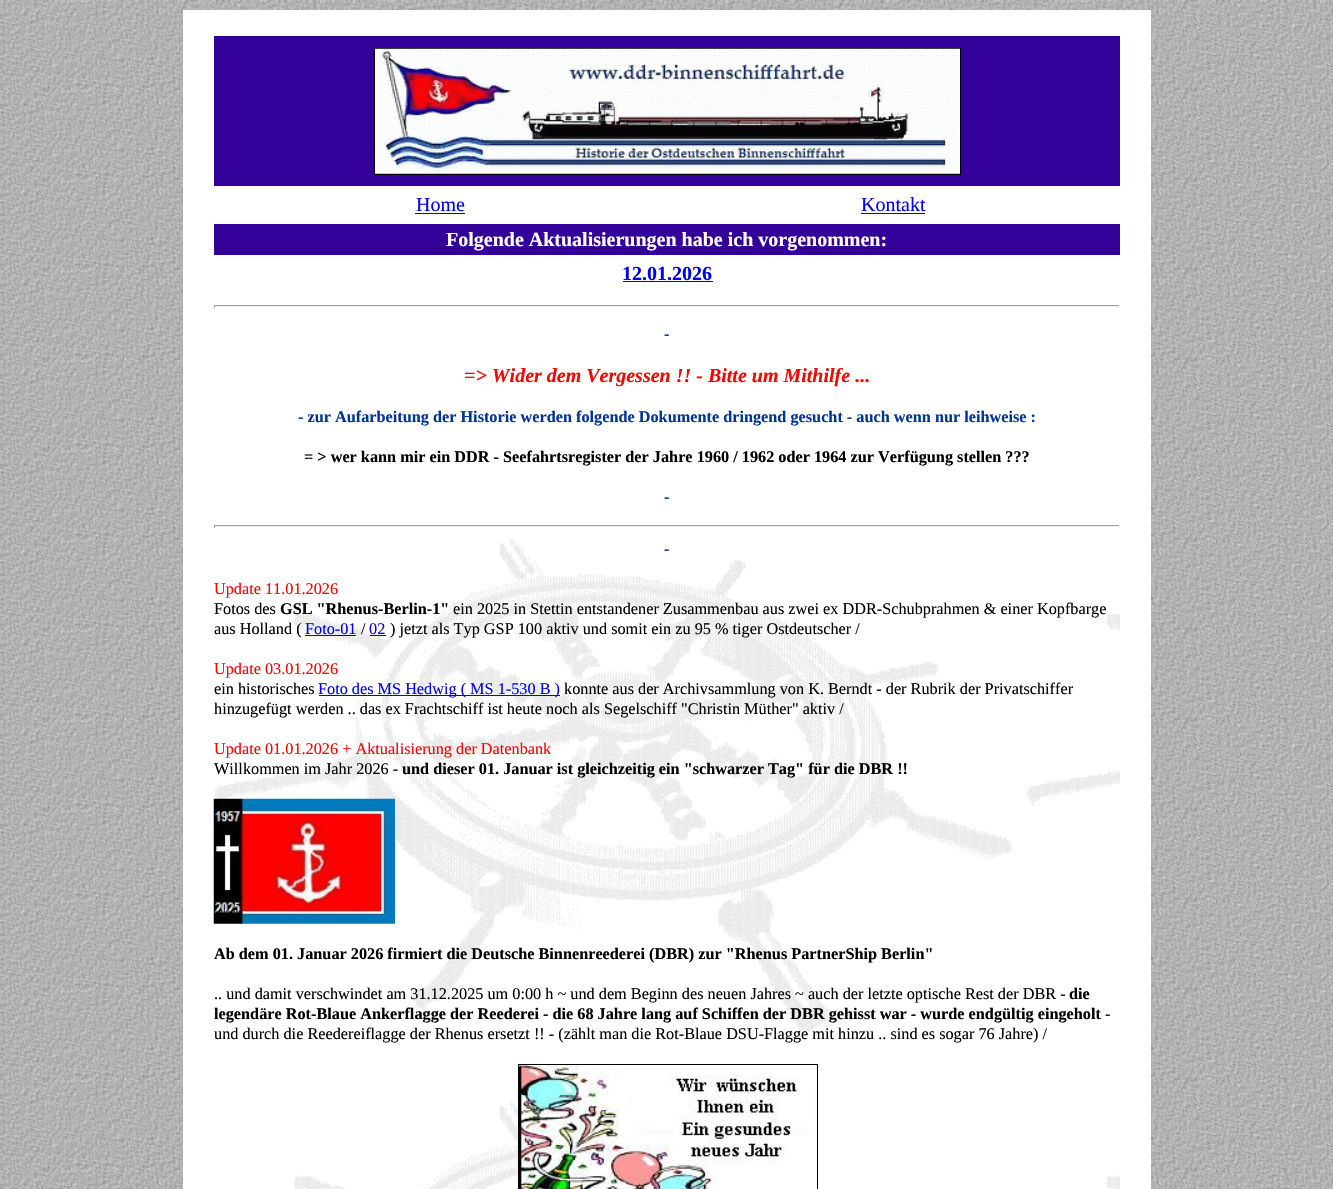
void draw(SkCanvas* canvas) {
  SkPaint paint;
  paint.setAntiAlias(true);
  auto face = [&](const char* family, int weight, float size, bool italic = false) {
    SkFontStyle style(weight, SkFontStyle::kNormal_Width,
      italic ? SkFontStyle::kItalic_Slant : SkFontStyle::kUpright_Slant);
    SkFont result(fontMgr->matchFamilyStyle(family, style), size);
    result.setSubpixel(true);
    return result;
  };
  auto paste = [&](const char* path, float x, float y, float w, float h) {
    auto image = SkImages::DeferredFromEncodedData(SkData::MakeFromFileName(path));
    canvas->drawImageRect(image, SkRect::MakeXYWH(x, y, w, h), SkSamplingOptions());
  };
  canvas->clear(0xffffffff);
  paste("img/1.png", 0, 0, 1333, 1189);
  paint.setColor(0xffffffff);
  canvas->drawRect(SkRect::MakeXYWH(183, 10, 968, 1179), paint);
  paint.setColor(0xff330099);
  canvas->drawRect(SkRect::MakeXYWH(214, 36, 906, 150), paint);
  paint.setStroke(true);
  paint.setStrokeWidth(1);
  paint.setColor(0xff000000);
  canvas->drawRect(SkRect::MakeXYWH(374.5f, 48.5f, 586, 126), paint);
  paste("img/2.png", 375, 48, 585, 126);
  paint.setStroke(false);
  {
    const struct { float x, y, w, h; SkColor color; } items[] = {
      {415, 213, 50, 1, 0xff0000ee},
      {861, 213, 64, 1, 0xff0000ee},
      {214, 224, 906, 31, 0xff330099},
      {623, 281, 90, 1, 0xff0000ee},
      {214, 305, 906, 1, 0xff9f9f9f},
      {1119, 305, 1, 3, 0xffeeeeee},
      {214, 306, 906, 1, 0xffeeeeee},
      {214, 305, 1, 3, 0xff9f9f9f},
      {214, 525, 906, 1, 0xff9f9f9f},
      {1119, 525, 1, 3, 0xffeeeeee},
      {214, 526, 906, 1, 0xffeeeeee},
      {214, 525, 1, 3, 0xff9f9f9f},
    };
    for (auto [x, y, w, h, color] : items) {
      paint.setColor(color);
      canvas->drawRect(SkRect::MakeXYWH(x, y, w, h), paint);
    }
  }
  paste("img/3.png", 215, 539, 905, 650);
  {
    const struct { float x, y, w, h; SkColor color; } items[] = {
      {305, 635, 51, 1, 0xff0000ee},
      {370, 635, 16, 1, 0xff0000ee},
      {319, 695, 241, 1, 0xff0000ee},
    };
    for (auto [x, y, w, h, color] : items) {
      paint.setColor(color);
      canvas->drawRect(SkRect::MakeXYWH(x, y, w, h), paint);
    }
  }
  paste("img/4.png", 213, 798, 182, 126);
  paint.setStroke(true);
  paint.setColor(0xff000000);
  canvas->drawRect(SkRect::MakeXYWH(518.5f, 1064.5f, 299, 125), paint);
  paste("img/5.png", 518, 1065, 298, 124);
  auto f0 = face("Liberation Serif", 400, 20);
  paint.setStroke(false);
  paint.setColor(0xff0000ee);
  canvas->drawString("Home", 416, 211, f0, paint);
  canvas->drawString("Kontakt", 861, 211, f0, paint);
  auto f1 = face("Liberation Serif", 700, 20);
  paint.setColor(0xffffffff);
  canvas->drawString("Folgende Aktualisierungen habe ich vorgenommen:", 446, 246, f1, paint);
  paint.setColor(0xff0000ee);
  canvas->drawString("12.01.2026", 622, 280, f1, paint);
  auto f2 = face("Liberation Serif", 700, 16.25f);
  paint.setColor(0xff003399);
  canvas->drawString("-", 664, 339, f2, paint);
  auto f3 = face("Liberation Serif", 700, 20, true);
  paint.setColor(0xffff0000);
  canvas->drawString("=> Wider dem Vergessen !! - Bitte um Mithilfe ...", 464, 382, f3, paint);
  paint.setColor(0xff003399);
  canvas->drawString("- zur Aufarbeitung der Historie werden folgende Dokumente dringend gesucht - auch wenn nur leihweise :", 298, 422, f2, paint);
  paint.setColor(0xff000000);
  canvas->drawString("= > wer kann mir ein DDR - Seefahrtsregister der Jahre 1960 / 1962 oder 1964 zur Verfügung stellen ?\077?", 304, 462, f2, paint);
  paint.setColor(0xff003399);
  canvas->drawString("-", 664, 502, f2, paint);
  canvas->drawString("-", 664, 554, f2, paint);
  auto f4 = face("Liberation Serif", 400, 16.25f);
  paint.setColor(0xffff0000);
  canvas->drawString("Update 11.01.2026", 214, 594, f4, paint);
  paint.setColor(0xff000000);
  canvas->drawString("Fotos des", 214, 614, f4, paint);
  canvas->drawString("GSL \"Rhenus-Berlin-1\"", 280, 614, f2, paint);
  canvas->drawString("ein 2025 in Stettin entstandener Zusammenbau aus zwei ex DDR-Schubprahmen & einer Kopfbarge", 453, 614, f4, paint);
  canvas->drawString("aus Holland (", 214, 634, f4, paint);
  paint.setColor(0xff0000ee);
  canvas->drawString("Foto-01", 305, 634, f4, paint);
  paint.setColor(0xff000000);
  canvas->drawString("/", 361, 634, f4, paint);
  paint.setColor(0xff0000ee);
  canvas->drawString("02", 369, 634, f4, paint);
  paint.setColor(0xff000000);
  canvas->drawString(") jetzt als Typ GSP 100 aktiv und somit ein zu 95 % tiger Ostdeutscher /", 390, 634, f4, paint);
  paint.setColor(0xffff0000);
  canvas->drawString("Update 03.01.2026", 214, 674, f4, paint);
  paint.setColor(0xff000000);
  canvas->drawString("ein historisches", 214, 694, f4, paint);
  paint.setColor(0xff0000ee);
  canvas->drawString("Foto des MS Hedwig ( MS 1-530 B )", 318, 694, f4, paint);
  paint.setColor(0xff000000);
  canvas->drawString("konnte aus der Archivsammlung von K. Berndt - der Rubrik der Privatschiffer", 564, 694, f4, paint);
  canvas->drawString("hinzugefügt werden .. das ex Frachtschiff ist heute noch als Segelschiff \"Christin Müther\" aktiv /", 214, 714, f4, paint);
  paint.setColor(0xffff0000);
  canvas->drawString("Update 01.01.2026 + Aktualisierung der Datenbank", 214, 754, f4, paint);
  paint.setColor(0xff000000);
  canvas->drawString("Willkommen im Jahr 2026 -", 214, 774, f4, paint);
  canvas->drawString("und dieser 01. Januar ist gleichzeitig ein \"schwarzer Tag\" für die DBR !!", 402, 774, f2, paint);
  canvas->drawString("Ab dem 01. Januar 2026 firmiert die Deutsche Binnenreederei (DBR) zur \"Rhenus PartnerShip Berlin\"", 214, 959, f2, paint);
  canvas->drawString(".. und damit verschwindet am 31.12.2025 um 0:00 h ~ und dem Beginn des neuen Jahres ~ auch der letzte optische Rest der DBR -", 214, 999, f4, paint);
  canvas->drawString("die", 1069, 999, f2, paint);
  canvas->drawString("legendäre Rot-Blaue Ankerflagge der Reederei - die 68 Jahre lang auf Schiffen der DBR gehisst war - wurde endgültig eingeholt", 214, 1019, f2, paint);
  canvas->drawString("-", 1105, 1019, f4, paint);
  canvas->drawString("und durch die Reedereiflagge der Rhenus ersetzt !! - (zählt man die Rot-Blaue DSU-Flagge mit hinzu .. sind es sogar 76 Jahre) /", 214, 1039, f4, paint);
}
